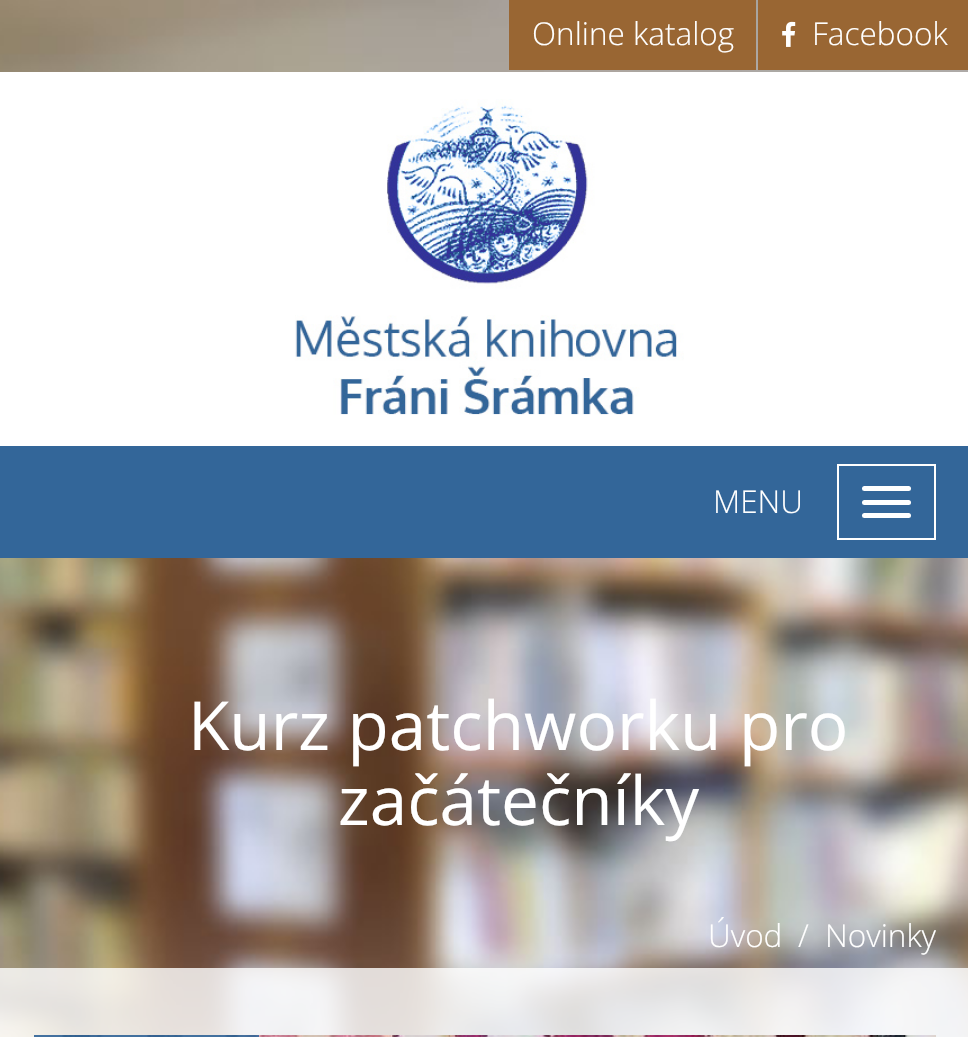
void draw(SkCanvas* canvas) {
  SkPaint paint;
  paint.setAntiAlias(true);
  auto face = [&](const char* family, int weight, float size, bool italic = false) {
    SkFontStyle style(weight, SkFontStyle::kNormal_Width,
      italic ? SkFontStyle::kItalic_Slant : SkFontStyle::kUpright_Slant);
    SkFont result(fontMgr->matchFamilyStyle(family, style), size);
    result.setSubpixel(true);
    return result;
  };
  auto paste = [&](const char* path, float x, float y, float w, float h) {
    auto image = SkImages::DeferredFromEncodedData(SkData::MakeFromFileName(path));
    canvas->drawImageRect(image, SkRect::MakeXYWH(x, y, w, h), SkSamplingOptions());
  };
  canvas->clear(0xffffffff);
  paste("img/1.png", 0, 0, 968, 1037);
  paint.setColor(0xff996633);
  canvas->drawRect(SkRect::MakeXYWH(509, 0, 247, 70), paint);
  canvas->drawRect(SkRect::MakeXYWH(758, 0, 210, 70), paint);
  paste("img/2.png", 782, 21, 14, 26);
  paint.setColor(0xffffffff);
  canvas->drawRect(SkRect::MakeXYWH(0, 72, 968, 374), paint);
  paste("img/3.png", 295, 99, 389, 316);
  paint.setColor(0xff336699);
  canvas->drawRect(SkRect::MakeXYWH(0, 446, 968, 112), paint);
  paint.setStroke(true);
  paint.setStrokeWidth(2);
  paint.setColor(0xffffffff);
  canvas->drawRect(SkRect::MakeXYWH(838, 465, 97, 74), paint);
  paint.setStroke(false);
  canvas->drawRoundRect(SkRect::MakeXYWH(862, 486, 49, 5), 2.5f, 2.5f, paint);
  canvas->drawRoundRect(SkRect::MakeXYWH(862, 500, 49, 5), 2.5f, 2.5f, paint);
  canvas->drawRoundRect(SkRect::MakeXYWH(862, 513, 49, 5), 2.5f, 2.5f, paint);
  paint.setColor(0xccffffff);
  canvas->drawRect(SkRect::MakeXYWH(0, 968, 968, 69), paint);
  paste("img/4.png", 34, 1035, 902, 2);
  paint.setColor(0xe6336699);
  canvas->drawRect(SkRect::MakeXYWH(34, 1035, 225, 2), paint);
  auto f0 = face("Open Sans", 300, 31.5f);
  paint.setColor(0xffffffff);
  {
    const struct { const char* s; float x, y; } items[] = {
      {"Online katalog", 532, 45},
      {"Facebook", 812, 45},
      {"MENU", 713, 513},
    };
    for (auto [s, x, y] : items) {
      canvas->drawString(s, x, y, f0, paint);
    }
  }
  auto f1 = face("Open Sans", 400, 67.5f);
  canvas->drawString("Kurz patchworku pro", 188, 750, f1, paint);
  canvas->drawString("začátečníky", 338, 825, f1, paint);
  {
    const struct { const char* s; float x, y; } items[] = {
      {"Úvod", 708, 947},
      {"/", 798, 947},
      {"Novinky", 825, 947},
    };
    for (auto [s, x, y] : items) {
      canvas->drawString(s, x, y, f0, paint);
    }
  }
}
